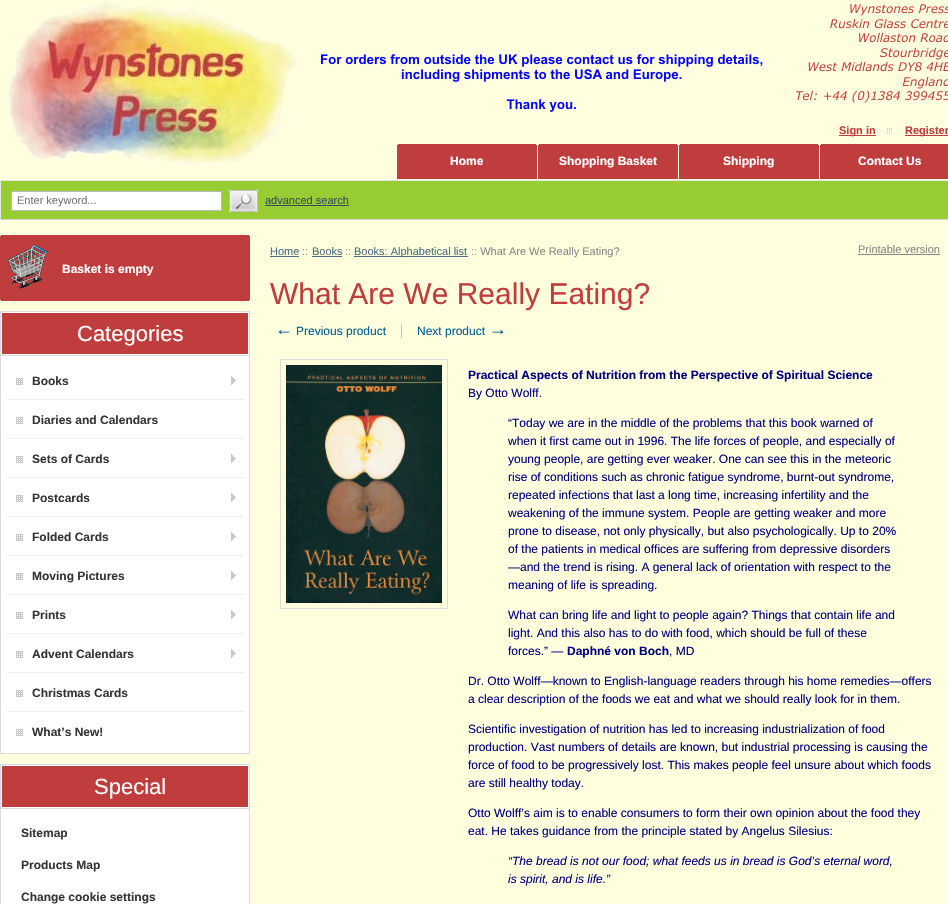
void draw(SkCanvas* canvas) {
  SkPaint paint;
  paint.setAntiAlias(true);
  auto face = [&](const char* family, int weight, float size, bool italic = false) {
    SkFontStyle style(weight, SkFontStyle::kNormal_Width,
      italic ? SkFontStyle::kItalic_Slant : SkFontStyle::kUpright_Slant);
    SkFont result(fontMgr->matchFamilyStyle(family, style), size);
    result.setSubpixel(true);
    return result;
  };
  auto paste = [&](const char* path, float x, float y, float w, float h) {
    auto image = SkImages::DeferredFromEncodedData(SkData::MakeFromFileName(path));
    canvas->drawImageRect(image, SkRect::MakeXYWH(x, y, w, h), SkSamplingOptions());
  };
  canvas->clear(0xffffffdd);
  paste("img/1.png", 8, 0, 940, 166);
  paint.setColor(0xffbf3d3d);
  canvas->drawRect(SkRect::MakeXYWH(839, 135, 37, 1), paint);
  paste("img/2.png", 887, 128, 5, 5);
  {
    const struct { float x, y, w, h; SkColor color; } items[] = {
      {905, 135, 43, 1, 0xffbf3d3d},
      {397, 144, 140, 35, 0xffbf3d3d},
      {397, 144, 1, 1, 0xffffffff},
      {536, 144, 1, 1, 0xffffffff},
      {538, 144, 140, 35, 0xffbf3d3d},
      {538, 144, 1, 1, 0xffffffff},
      {677, 144, 1, 1, 0xffffffff},
      {679, 144, 140, 35, 0xffbf3d3d},
      {679, 144, 1, 1, 0xffffffff},
      {818, 144, 1, 1, 0xffffffff},
      {820, 144, 128, 35, 0xffbf3d3d},
      {820, 144, 1, 1, 0xffffffff},
      {1, 181, 947, 38, 0xff97cc33},
      {0, 180, 948, 1, 0xffe7e7e7},
      {0, 219, 948, 1, 0xffd0d0d0},
      {0, 180, 1, 40, 0xffe7e7e7},
    };
    for (auto [x, y, w, h, color] : items) {
      paint.setColor(color);
      canvas->drawRect(SkRect::MakeXYWH(x, y, w, h), paint);
    }
  }
  paint.setColor(0xffffffff);
  canvas->drawRect(SkRect::MakeXYWH(11.5f, 191.5f, 210, 19), paint);
  paint.setStroke(true);
  paint.setStrokeWidth(1);
  paint.setColor(0xffbbbbbb);
  canvas->drawRect(SkRect::MakeXYWH(11.5f, 191.5f, 210, 19), paint);
  paint.setStroke(false);
  paint.setColor(0xffffffff);
  canvas->drawRect(SkRect::MakeXYWH(229, 190, 29, 22), paint);
  paste("img/3.png", 229, 190, 29, 22);
  {
    const struct { float x, y, w, h; SkColor color; } items[] = {
      {265, 205, 84, 1, 0xff394b57},
      {0, 235, 250, 66, 0xffbf3d3d},
      {0, 235, 1, 1, 0xffffffff},
      {249, 235, 1, 1, 0xffffffff},
    };
    for (auto [x, y, w, h, color] : items) {
      paint.setColor(color);
      canvas->drawRect(SkRect::MakeXYWH(x, y, w, h), paint);
    }
  }
  paste("img/4.png", 8, 244, 40, 45);
  canvas->drawRect(SkRect::MakeXYWH(0, 300, 1, 1), paint);
  canvas->drawRect(SkRect::MakeXYWH(249, 300, 1, 1), paint);
  paint.setStroke(true);
  paint.setColor(0xffdbdbdb);
  canvas->drawRect(SkRect::MakeXYWH(0.5f, 311.5f, 249, 442), paint);
  paint.setStroke(false);
  paint.setColor(0xffbf3d3d);
  canvas->drawRect(SkRect::MakeXYWH(1.5f, 312.5f, 247, 42), paint);
  paint.setStroke(true);
  paint.setColor(0xffffffff);
  canvas->drawRect(SkRect::MakeXYWH(1.5f, 312.5f, 247, 42), paint);
  paint.setStroke(false);
  {
    const struct { float x, y, w, h; SkColor color; } items[] = {
      {1, 356, 248, 397, 0xffffffff},
      {1, 355, 248, 1, 0xffdbdbdb},
      {6, 399, 238, 1, 0xffefefef},
    };
    for (auto [x, y, w, h, color] : items) {
      paint.setColor(color);
      canvas->drawRect(SkRect::MakeXYWH(x, y, w, h), paint);
    }
  }
  paste("img/5.png", 231, 376, 5, 9);
  paste("img/6.png", 16, 378, 7, 7);
  canvas->drawRect(SkRect::MakeXYWH(6, 438, 238, 1), paint);
  paste("img/6.png", 16, 417, 7, 7);
  canvas->drawRect(SkRect::MakeXYWH(6, 477, 238, 1), paint);
  paste("img/5.png", 231, 454, 5, 9);
  paste("img/6.png", 16, 456, 7, 7);
  canvas->drawRect(SkRect::MakeXYWH(6, 516, 238, 1), paint);
  paste("img/5.png", 231, 493, 5, 9);
  paste("img/6.png", 16, 495, 7, 7);
  canvas->drawRect(SkRect::MakeXYWH(6, 555, 238, 1), paint);
  paste("img/5.png", 231, 532, 5, 9);
  paste("img/6.png", 16, 534, 7, 7);
  canvas->drawRect(SkRect::MakeXYWH(6, 594, 238, 1), paint);
  paste("img/5.png", 231, 571, 5, 9);
  paste("img/6.png", 16, 573, 7, 7);
  canvas->drawRect(SkRect::MakeXYWH(6, 633, 238, 1), paint);
  paste("img/5.png", 231, 610, 5, 9);
  paste("img/6.png", 16, 612, 7, 7);
  canvas->drawRect(SkRect::MakeXYWH(6, 672, 238, 1), paint);
  paste("img/5.png", 231, 649, 5, 9);
  paste("img/6.png", 16, 651, 7, 7);
  canvas->drawRect(SkRect::MakeXYWH(6, 711, 238, 1), paint);
  paste("img/6.png", 16, 690, 7, 7);
  paste("img/6.png", 16, 729, 7, 7);
  paint.setStroke(true);
  paint.setColor(0xffdbdbdb);
  canvas->drawRect(SkRect::MakeXYWH(0.5f, 764.5f, 249, 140), paint);
  paint.setStroke(false);
  paint.setColor(0xffbf3d3d);
  canvas->drawRect(SkRect::MakeXYWH(1.5f, 765.5f, 247, 42), paint);
  paint.setStroke(true);
  paint.setColor(0xffffffff);
  canvas->drawRect(SkRect::MakeXYWH(1.5f, 765.5f, 247, 42), paint);
  paint.setStroke(false);
  {
    const struct { float x, y, w, h; SkColor color; } items[] = {
      {1, 809, 248, 95, 0xffffffff},
      {1, 808, 248, 1, 0xffdbdbdb},
      {270, 256, 29, 1, 0xff4c6d82},
      {312, 256, 30, 1, 0xff4c6d82},
      {354, 256, 114, 1, 0xff4c6d82},
      {858, 254, 82, 1, 0xff888888},
      {401, 324, 1, 14, 0xffc5c5c5},
    };
    for (auto [x, y, w, h, color] : items) {
      paint.setColor(color);
      canvas->drawRect(SkRect::MakeXYWH(x, y, w, h), paint);
    }
  }
  paint.setStroke(true);
  paint.setColor(0xffdbdbdb);
  canvas->drawRect(SkRect::MakeXYWH(280.5f, 359.5f, 167, 249), paint);
  paste("img/7.png", 286, 365, 156, 238);
  auto f0 = face("Liberation Sans", 700, 11);
  paint.setStroke(false);
  paint.setColor(0xffbf3d3d);
  canvas->drawString("Sign in", 839, 134, f0, paint);
  canvas->drawString("Register", 905, 134, f0, paint);
  auto f1 = face("Liberation Sans", 700, 12);
  paint.setColor(0xffffffff);
  {
    const struct { const char* s; float x, y; } items[] = {
      {"Home", 450, 165},
      {"Shopping Basket", 559, 165},
      {"Shipping", 723, 165},
      {"Contact Us", 858, 165},
    };
    for (auto [s, x, y] : items) {
      canvas->drawString(s, x, y, f1, paint);
    }
  }
  auto f2 = face("Liberation Sans", 400, 11);
  paint.setColor(0xff757575);
  canvas->drawString("Enter keyword...", 17, 204, f2, paint);
  paint.setColor(0xff394b57);
  canvas->drawString("advanced search", 265, 204, f2, paint);
  paint.setColor(0xffffffff);
  canvas->drawString("Basket is empty", 62, 273, f1, paint);
  auto f3 = face("Liberation Sans", 400, 22);
  canvas->drawString("Categories", 77, 341, f3, paint);
  paint.setColor(0xff353535);
  {
    const struct { const char* s; float x, y; } items[] = {
      {"Books", 32, 385},
      {"Diaries and Calendars", 32, 424},
      {"Sets of Cards", 32, 463},
      {"Postcards", 32, 502},
      {"Folded Cards", 32, 541},
      {"Moving Pictures", 32, 580},
      {"Prints", 32, 619},
      {"Advent Calendars", 32, 658},
      {"Christmas Cards", 32, 697},
      {"What’s New!", 32, 736},
    };
    for (auto [s, x, y] : items) {
      canvas->drawString(s, x, y, f1, paint);
    }
  }
  paint.setColor(0xffffffff);
  canvas->drawString("Special", 94, 794, f3, paint);
  paint.setColor(0xff353535);
  {
    const struct { const char* s; float x, y; } items[] = {
      {"Sitemap", 21, 837},
      {"Products Map", 21, 869},
      {"Change cookie settings", 21, 901},
    };
    for (auto [s, x, y] : items) {
      canvas->drawString(s, x, y, f1, paint);
    }
  }
  paint.setColor(0xff4c6d82);
  canvas->drawString("Home", 270, 255, f2, paint);
  paint.setColor(0xff888888);
  canvas->drawString("::", 302, 255, f2, paint);
  paint.setColor(0xff4c6d82);
  canvas->drawString("Books", 312, 255, f2, paint);
  paint.setColor(0xff888888);
  canvas->drawString("::", 345, 255, f2, paint);
  paint.setColor(0xff4c6d82);
  canvas->drawString("Books: Alphabetical list", 354, 255, f2, paint);
  paint.setColor(0xff888888);
  canvas->drawString(":: What Are We Really Eating?", 471, 255, f2, paint);
  canvas->drawString("Printable version", 858, 253, f2, paint);
  auto f4 = face("Liberation Sans", 400, 30);
  paint.setColor(0xffbf3d3d);
  canvas->drawString("What Are We Really Eating?", 270, 304, f4, paint);
  auto f5 = face("Liberation Sans", 400, 18);
  paint.setColor(0xff005d98);
  canvas->drawString("←", 275, 335, f5, paint);
  auto f6 = face("Liberation Sans", 400, 12);
  canvas->drawString("Previous product", 296, 335, f6, paint);
  canvas->drawString("Next product", 417, 335, f6, paint);
  canvas->drawString("→", 489, 335, f5, paint);
  paint.setColor(0xff000080);
  canvas->drawString("Practical Aspects of Nutrition from the Perspective of Spiritual Science", 468, 379, f1, paint);
  {
    const struct { const char* s; float x, y; } items[] = {
      {"By Otto Wolff.", 468, 397},
      {"“Today we are in the middle of the problems that this book warned of", 508, 427},
      {"when it first came out in 1996. The life forces of people, and especially of", 508, 445},
      {"young people, are getting ever weaker. One can see this in the meteoric", 508, 463},
      {"rise of conditions such as chronic fatigue syndrome, burnt-out syndrome,", 508, 481},
      {"repeated infections that last a long time, increasing infertility and the", 508, 499},
      {"weakening of the immune system. People are getting weaker and more", 508, 517},
      {"prone to disease, not only physically, but also psychologically. Up to 20%", 508, 535},
      {"of the patients in medical offices are suffering from depressive disorders", 508, 553},
      {"—and the trend is rising. A general lack of orientation with respect to the", 508, 571},
      {"meaning of life is spreading.", 508, 589},
      {"What can bring life and light to people again? Things that contain life and", 508, 619},
      {"light. And this also has to do with food, which should be full of these", 508, 637},
      {"forces.” —", 508, 655},
    };
    for (auto [s, x, y] : items) {
      canvas->drawString(s, x, y, f6, paint);
    }
  }
  canvas->drawString("Daphné von Boch", 567, 655, f1, paint);
  {
    const struct { const char* s; float x, y; } items[] = {
      {", MD", 669, 655},
      {"Dr. Otto Wolff—known to English-language readers through his home remedies—offers", 468, 685},
      {"a clear description of the foods we eat and what we should really look for in them.", 468, 703},
      {"Scientific investigation of nutrition has led to increasing industrialization of food", 468, 733},
      {"production. Vast numbers of details are known, but industrial processing is causing the", 468, 751},
      {"force of food to be progressively lost. This makes people feel unsure about which foods", 468, 769},
      {"are still healthy today.", 468, 787},
      {"Otto Wolff’s aim is to enable consumers to form their own opinion about the food they", 468, 817},
      {"eat. He takes guidance from the principle stated by Angelus Silesius:", 468, 835},
    };
    for (auto [s, x, y] : items) {
      canvas->drawString(s, x, y, f6, paint);
    }
  }
  auto f7 = face("Liberation Sans", 400, 12, true);
  canvas->drawString("“The bread is not our food; what feeds us in bread is God’s eternal word,", 508, 865, f7, paint);
  canvas->drawString("is spirit, and is life.”", 508, 883, f7, paint);
}
